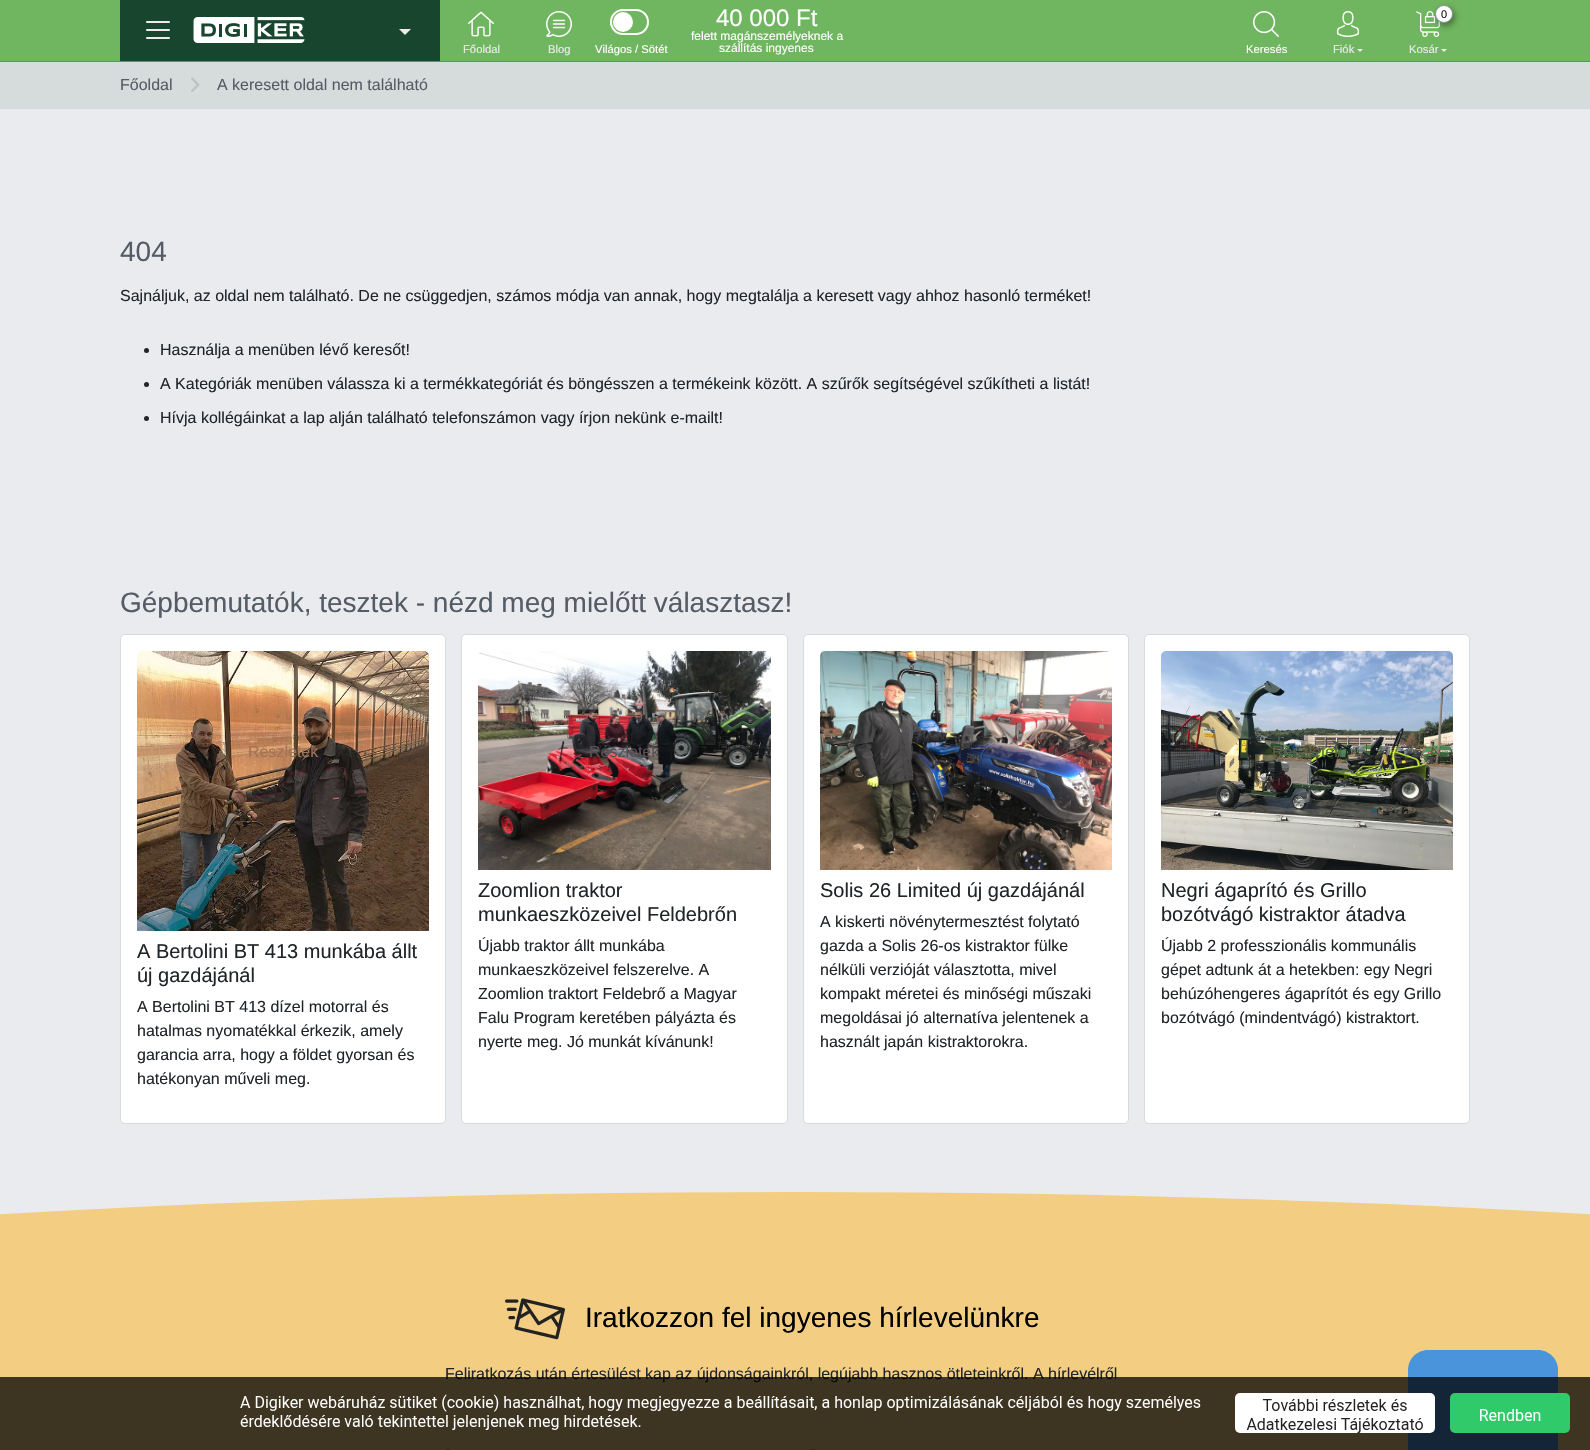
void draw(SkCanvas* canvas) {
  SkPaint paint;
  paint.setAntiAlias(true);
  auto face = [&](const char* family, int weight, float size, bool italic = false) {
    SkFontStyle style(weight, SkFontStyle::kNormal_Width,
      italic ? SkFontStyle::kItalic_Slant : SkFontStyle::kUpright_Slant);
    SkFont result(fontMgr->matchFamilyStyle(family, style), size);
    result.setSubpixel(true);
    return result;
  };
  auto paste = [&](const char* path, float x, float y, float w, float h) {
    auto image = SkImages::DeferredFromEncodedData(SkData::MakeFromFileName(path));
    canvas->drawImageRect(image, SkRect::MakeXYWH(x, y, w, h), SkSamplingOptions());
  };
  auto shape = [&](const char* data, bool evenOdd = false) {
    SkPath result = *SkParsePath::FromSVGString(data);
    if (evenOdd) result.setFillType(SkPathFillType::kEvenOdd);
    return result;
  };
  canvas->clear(0xffe9ebee);
  {
    const struct { float x, y, w, h; SkColor color; } items[] = {
      {0, 0, 1590, 61, 0xff70b560},
      {0, 61, 1590, 1, 0xff579a48},
      {120, 0, 320, 61, 0xff17452e},
    };
    for (auto [x, y, w, h, color] : items) {
      paint.setColor(color);
      canvas->drawRect(SkRect::MakeXYWH(x, y, w, h), paint);
    }
  }
  paste("img/1.png", 146, 21, 24, 18);
  paste("img/2.png", 193, 17, 112, 26);
  paint.setColor(0xffeaedec);
  canvas->drawPath(shape("M399 29H411L405 35Z"), paint);
  paste("img/3.png", 468, 11, 26, 26);
  paste("img/4.png", 546, 11, 26, 26);
  paint.setStroke(true);
  paint.setStrokeWidth(2);
  paint.setColor(0xffffffff);
  canvas->drawRoundRect(SkRect::MakeXYWH(611, 10, 37, 24), 12, 12, paint);
  paint.setStroke(false);
  canvas->drawCircle(623, 22, 10, paint);
  paste("img/5.png", 1253, 11, 26, 26);
  paste("img/6.png", 1336, 11, 24, 26);
  paint.setColor(0xffeaedec);
  canvas->drawPath(shape("M1357 49H1363L1360 52Z"), paint);
  paste("img/7.png", 1416, 11, 24, 26);
  paint.setColor(0x66000000);
  paint.setMaskFilter(SkMaskFilter::MakeBlur(kNormal_SkBlurStyle, 3));
  canvas->drawRoundRect(SkRect::MakeXYWH(1437, 8, 18, 18), 9, 9, paint);
  paint.setMaskFilter(nullptr);
  paint.setColor(0xffffffff);
  canvas->drawCircle(1444, 14, 8.5f, paint);
  paint.setStroke(true);
  paint.setStrokeWidth(1);
  paint.setColor(0xff879196);
  canvas->drawCircle(1444, 14, 8.5f, paint);
  paint.setStroke(false);
  paint.setColor(0xffeaedec);
  canvas->drawPath(shape("M1441 49H1447L1444 52Z"), paint);
  paint.setColor(0xffd6dbdb);
  canvas->drawRect(SkRect::MakeXYWH(0, 62, 1590, 47), paint);
  paste("img/8.png", 191, 77, 9, 15);
  paint.setColor(0xff212529);
  canvas->drawCircle(146.5f, 350.5f, 2.5f, paint);
  canvas->drawCircle(146.5f, 384.5f, 2.5f, paint);
  canvas->drawCircle(146.5f, 418.5f, 2.5f, paint);
  paint.setColor(0xffffffff);
  canvas->drawRoundRect(SkRect::MakeXYWH(120.5f, 634.5f, 325, 489), 4.5f, 4.5f, paint);
  paint.setStroke(true);
  paint.setColor(0xffd6dbdb);
  canvas->drawRoundRect(SkRect::MakeXYWH(120.5f, 634.5f, 325, 489), 4.5f, 4.5f, paint);
  paste("img/9.png", 137, 651, 292, 280);
  paint.setStroke(false);
  paint.setColor(0xffffffff);
  canvas->drawRoundRect(SkRect::MakeXYWH(461.5f, 634.5f, 326, 489), 4.5f, 4.5f, paint);
  paint.setStroke(true);
  paint.setColor(0xffd6dbdb);
  canvas->drawRoundRect(SkRect::MakeXYWH(461.5f, 634.5f, 326, 489), 4.5f, 4.5f, paint);
  paste("img/10.png", 478, 651, 293, 219);
  paint.setStroke(false);
  paint.setColor(0xffffffff);
  canvas->drawRoundRect(SkRect::MakeXYWH(803.5f, 634.5f, 325, 489), 4.5f, 4.5f, paint);
  paint.setStroke(true);
  paint.setColor(0xffd6dbdb);
  canvas->drawRoundRect(SkRect::MakeXYWH(803.5f, 634.5f, 325, 489), 4.5f, 4.5f, paint);
  paste("img/11.png", 820, 651, 292, 219);
  paint.setStroke(false);
  paint.setColor(0xffffffff);
  canvas->drawRoundRect(SkRect::MakeXYWH(1144.5f, 634.5f, 325, 489), 4.5f, 4.5f, paint);
  paint.setStroke(true);
  paint.setColor(0xffd6dbdb);
  canvas->drawRoundRect(SkRect::MakeXYWH(1144.5f, 634.5f, 325, 489), 4.5f, 4.5f, paint);
  paste("img/12.png", 1161, 651, 292, 219);
  paint.setStroke(false);
  paint.setColor(0xfff3ce82);
  canvas->drawOval(SkRect::MakeXYWH(-1590, 1192, 4770, 774), paint);
  paste("img/13.png", 505, 1298, 60, 42);
  paint.setColor(0xffe88264);
  canvas->drawRoundRect(SkRect::MakeXYWH(445, 1449, 6, 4), 3, 3, paint);
  canvas->drawRoundRect(SkRect::MakeXYWH(810, 1449, 6, 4), 3, 3, paint);
  paint.setColor(0xff4994da);
  canvas->drawPath(shape("M1428 1350H1538C1549 1350 1558 1359 1558 1370V1450H1408V1370C1408 1359 1417 1350 1428 1350Z"), paint);
  auto f0 = face("Liberation Sans", 400, 11.25f);
  paint.setColor(0xffeaedec);
  canvas->drawString("Főoldal", 463, 53, f0, paint);
  canvas->drawString("Blog", 548, 53, f0, paint);
  paint.setColor(0xffffffff);
  canvas->drawString("Világos / Sötét", 595, 53, f0, paint);
  auto f1 = face("Liberation Sans", 400, 24);
  canvas->drawString("40 000 Ft", 716, 26, f1, paint);
  auto f2 = face("Liberation Sans", 400, 12);
  canvas->drawString("felett magánszemélyeknek a", 691, 40, f2, paint);
  canvas->drawString("szállítás ingyenes", 719, 52, f2, paint);
  canvas->drawString("Keresés", 1246, 53, f0, paint);
  paint.setColor(0xffeaedec);
  canvas->drawString("Fiók", 1333, 53, f0, paint);
  auto f3 = face("Liberation Sans", 400, 11);
  paint.setColor(0xff17191f);
  canvas->drawString("0", 1441, 18, f3, paint);
  paint.setColor(0xffeaedec);
  canvas->drawString("Kosár", 1409, 53, f0, paint);
  auto f4 = face("Liberation Sans", 400, 16);
  paint.setColor(0xff555c65);
  canvas->drawString("Főoldal", 120, 90, f4, paint);
  canvas->drawString("A keresett oldal nem található", 217, 90, f4, paint);
  auto f5 = face("Liberation Sans", 400, 28);
  canvas->drawString("404", 120, 261, f5, paint);
  paint.setColor(0xff212529);
  {
    const struct { const char* s; float x, y; } items[] = {
      {"Sajnáljuk, az oldal nem található. De ne csüggedjen, számos módja van annak, hogy megtalálja a keresett vagy ahhoz hasonló terméket!", 120, 301},
      {"Használja a menüben lévő keresőt!", 160, 355},
      {"A Kategóriák menüben válassza ki a termékkategóriát és böngésszen a termékeink között. A szűrők segítségével szűkítheti a listát!", 160, 389},
      {"Hívja kollégáinkat a lap alján található telefonszámon vagy írjon nekünk e-mailt!", 160, 423},
    };
    for (auto [s, x, y] : items) {
      canvas->drawString(s, x, y, f4, paint);
    }
  }
  paint.setColor(0xff555c65);
  canvas->drawString("Gépbemutatók, tesztek - nézd meg mielőtt választasz!", 120, 612, f5, paint);
  paint.setColor(0xffa07454);
  canvas->drawString("Részletek", 248, 757, f4, paint);
  auto f6 = face("Liberation Sans", 400, 20);
  paint.setColor(0xff212529);
  canvas->drawString("A Bertolini BT 413 munkába állt", 137, 958, f6, paint);
  canvas->drawString("új gazdájánál", 137, 982, f6, paint);
  {
    const struct { const char* s; float x, y; } items[] = {
      {"A Bertolini BT 413 dízel motorral és", 137, 1012},
      {"hatalmas nyomatékkal érkezik, amely", 137, 1036},
      {"garancia arra, hogy a földet gyorsan és", 137, 1060},
      {"hatékonyan műveli meg.", 137, 1084},
    };
    for (auto [s, x, y] : items) {
      canvas->drawString(s, x, y, f4, paint);
    }
  }
  paint.setColor(0xff584e51);
  canvas->drawString("Részletek", 589, 757, f4, paint);
  paint.setColor(0xff212529);
  canvas->drawString("Zoomlion traktor", 478, 897, f6, paint);
  canvas->drawString("munkaeszközeivel Feldebrőn", 478, 921, f6, paint);
  {
    const struct { const char* s; float x, y; } items[] = {
      {"Újabb traktor állt munkába", 478, 951},
      {"munkaeszközeivel felszerelve. A", 478, 975},
      {"Zoomlion traktort Feldebrő a Magyar", 478, 999},
      {"Falu Program keretében pályázta és", 478, 1023},
      {"nyerte meg. Jó munkát kívánunk!", 478, 1047},
    };
    for (auto [s, x, y] : items) {
      canvas->drawString(s, x, y, f4, paint);
    }
  }
  canvas->drawString("Solis 26 Limited új gazdájánál", 820, 897, f6, paint);
  {
    const struct { const char* s; float x, y; } items[] = {
      {"A kiskerti növénytermesztést folytató", 820, 927},
      {"gazda a Solis 26-os kistraktor fülke", 820, 951},
      {"nélküli verzióját választotta, mivel", 820, 975},
      {"kompakt méretei és minőségi műszaki", 820, 999},
      {"megoldásai jó alternatíva jelentenek a", 820, 1023},
      {"használt japán kistraktorokra.", 820, 1047},
    };
    for (auto [s, x, y] : items) {
      canvas->drawString(s, x, y, f4, paint);
    }
  }
  paint.setColor(0xff576542);
  canvas->drawString("Részletek", 1272, 757, f4, paint);
  paint.setColor(0xff212529);
  canvas->drawString("Negri ágaprító és Grillo", 1161, 897, f6, paint);
  canvas->drawString("bozótvágó kistraktor átadva", 1161, 921, f6, paint);
  {
    const struct { const char* s; float x, y; } items[] = {
      {"Újabb 2 professzionális kommunális", 1161, 951},
      {"gépet adtunk át a hetekben: egy Negri", 1161, 975},
      {"behúzóhengeres ágaprítót és egy Grillo", 1161, 999},
      {"bozótvágó (mindentvágó) kistraktort.", 1161, 1023},
    };
    for (auto [s, x, y] : items) {
      canvas->drawString(s, x, y, f4, paint);
    }
  }
  paint.setColor(0xff000000);
  canvas->drawString("Iratkozzon fel ingyenes hírlevelünkre", 585, 1327, f5, paint);
  paint.setColor(0xff212529);
  canvas->drawString("Feliratkozás után értesülést kap az újdonságainkról, legújabb hasznos ötleteinkről. A hírlevélről", 445, 1379, f4, paint);
  paint.setColor(0xbf000000);
  canvas->drawRect(SkRect::MakeXYWH(0, 1377, 1590, 73), paint);
  paste("img/14.png", 240, 1393, 1330, 40);
}
